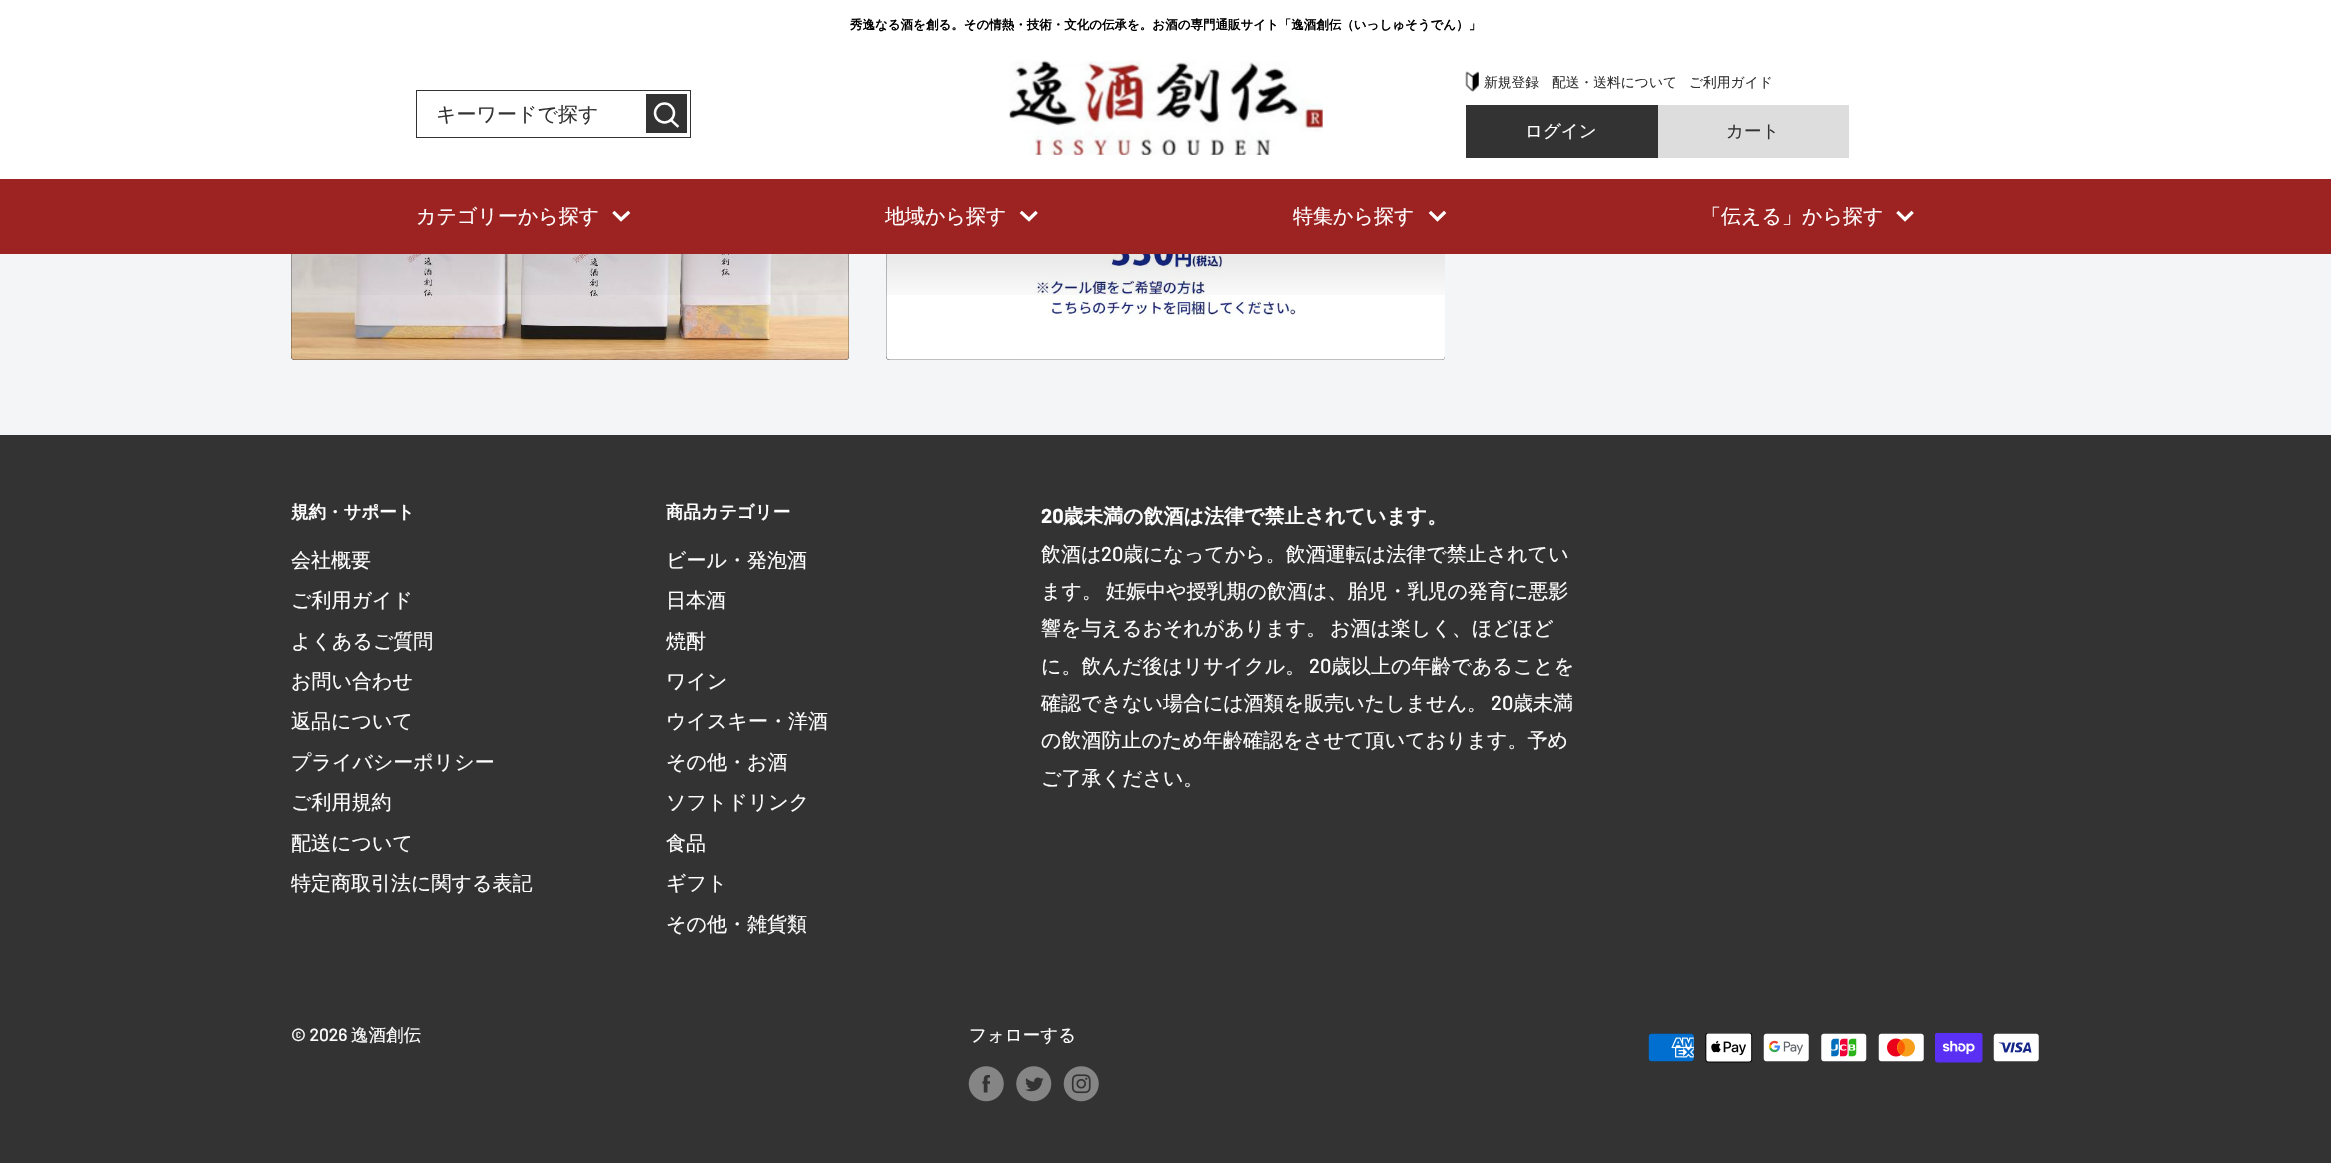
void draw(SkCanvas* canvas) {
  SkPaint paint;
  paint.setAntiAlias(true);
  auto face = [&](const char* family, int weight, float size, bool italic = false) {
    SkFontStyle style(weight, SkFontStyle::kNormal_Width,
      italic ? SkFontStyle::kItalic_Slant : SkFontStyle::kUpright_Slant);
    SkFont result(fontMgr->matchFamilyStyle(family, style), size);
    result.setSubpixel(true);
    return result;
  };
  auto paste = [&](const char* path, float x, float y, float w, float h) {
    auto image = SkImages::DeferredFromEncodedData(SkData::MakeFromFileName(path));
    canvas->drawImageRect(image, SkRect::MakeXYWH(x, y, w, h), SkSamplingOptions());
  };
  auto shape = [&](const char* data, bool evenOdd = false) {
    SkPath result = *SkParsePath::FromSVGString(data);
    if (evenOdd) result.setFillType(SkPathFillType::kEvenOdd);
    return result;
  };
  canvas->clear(0xfff3f5f6);
  paint.setColor(0xff000000);
  canvas->drawRoundRect(SkRect::MakeXYWH(291, 10, 558, 350), 4, 4, paint);
  paste("img/1.png", 291, 254, 558, 106);
  {
    const SkColor colors[] = {0x00000000, 0x80000000};
    const float stops[] = {0.15f, 1};
    const SkPoint ends[] = {{570, 360}, {570, 10}};
    paint.setShader(SkGradientShader::MakeLinear(ends, colors, stops, 2, SkTileMode::kClamp));
    paint.setAlpha(255);
  }
  canvas->drawRect(SkRect::MakeXYWH(291, 254, 558, 41), paint);
  paint.setShader(nullptr);
  paint.setColor(0xff000000);
  canvas->drawRoundRect(SkRect::MakeXYWH(886, 10, 559, 350), 4, 4, paint);
  paste("img/2.png", 886, 254, 559, 106);
  {
    const SkColor colors[] = {0x00000000, 0x80000000};
    const float stops[] = {0.15f, 1};
    const SkPoint ends[] = {{1166, 360}, {1166, 10}};
    paint.setShader(SkGradientShader::MakeLinear(ends, colors, stops, 2, SkTileMode::kClamp));
    paint.setAlpha(255);
  }
  canvas->drawRect(SkRect::MakeXYWH(886, 254, 559, 41), paint);
  paint.setShader(nullptr);
  paint.setColor(0xffffffff);
  canvas->drawRect(SkRect::MakeXYWH(0, 0, 2331, 179), paint);
  paint.setStroke(true);
  paint.setStrokeWidth(1);
  paint.setColor(0xff333333);
  canvas->drawRect(SkRect::MakeXYWH(416.5f, 90.5f, 274, 47), paint);
  paint.setStroke(false);
  canvas->drawRect(SkRect::MakeXYWH(646, 94, 41, 39), paint);
  paint.setStroke(true);
  paint.setStrokeWidth(2.5f);
  paint.setStrokeCap(SkPaint::kSquare_Cap);
  paint.setColor(0xffffffff);
  canvas->drawPath(shape("M677.5 126L671 120"), paint);
  paint.setStrokeCap(SkPaint::kButt_Cap);
  canvas->drawCircle(664.5f, 113, 9.5f, paint);
  paste("img/3.png", 1009, 60, 314, 95);
  paste("img/4.png", 1465, 71, 14, 21);
  paint.setStroke(false);
  {
    const struct { float x, y, w, h; SkColor color; } items[] = {
      {1466, 105, 192, 53, 0xff333333},
      {1658, 105, 191, 53, 0xffdddddd},
      {0, 179, 2331, 75, 0xff9d2322},
    };
    for (auto [x, y, w, h, color] : items) {
      paint.setColor(color);
      canvas->drawRect(SkRect::MakeXYWH(x, y, w, h), paint);
    }
  }
  paint.setStroke(true);
  paint.setStrokeWidth(3.3f);
  paint.setStrokeCap(SkPaint::kSquare_Cap);
  paint.setColor(0xffffffff);
  canvas->drawPath(shape("M628 213L621 219.5L614.5 213"), paint);
  canvas->drawPath(shape("M1035.5 213L1029 219.5L1022 213"), paint);
  canvas->drawPath(shape("M1444 213L1437.5 219.5L1431 213"), paint);
  canvas->drawPath(shape("M1911.5 213L1905 219.5L1898.5 213"), paint);
  paint.setStroke(false);
  paint.setColor(0xff333333);
  canvas->drawRect(SkRect::MakeXYWH(0, 435, 2331, 728), paint);
  paste("img/5.png", 968, 1066, 36, 36);
  paste("img/6.png", 1016, 1066, 36, 36);
  paste("img/7.png", 1063, 1066, 36, 36);
  paste("img/8.png", 1648, 1033, 46, 29);
  paste("img/9.png", 1705, 1033, 48, 30);
  paste("img/10.png", 1763, 1033, 46, 29);
  paste("img/11.png", 1821, 1033, 46, 29);
  paste("img/12.png", 1878, 1033, 46, 29);
  paste("img/13.png", 1935, 1033, 48, 30);
  paste("img/14.png", 1993, 1033, 46, 29);
  auto f0 = face("WenQuanYi Zen Hei", 700, 12.5f);
  paint.setColor(0xff000000);
  canvas->drawString("秀逸なる酒を創る。その情熱・技術・文化の伝承を。お酒の専門通販サイト「逸酒創伝（いっしゅそうでん）」", 850, 29, f0, paint);
  auto f1 = face("WenQuanYi Zen Hei", 500, 20);
  paint.setColor(0xff333333);
  canvas->drawString("キーワードで探す", 436, 121, f1, paint);
  auto f2 = face("WenQuanYi Zen Hei", 500, 13.75f);
  {
    const struct { const char* s; float x, y; } items[] = {
      {"新規登録", 1484, 87},
      {"配送・送料について", 1552, 87},
      {"ご利用ガイド", 1689, 87},
    };
    for (auto [s, x, y] : items) {
      canvas->drawString(s, x, y, f2, paint);
    }
  }
  auto f3 = face("WenQuanYi Zen Hei", 500, 17.5f);
  paint.setColor(0xffffffff);
  canvas->drawString("ログイン", 1525, 137, f3, paint);
  paint.setColor(0xff333333);
  canvas->drawString("カート", 1726, 137, f3, paint);
  paint.setColor(0xffffffff);
  {
    const struct { const char* s; float x, y; } items[] = {
      {"カテゴリーから探す", 416, 223},
      {"地域から探す", 885, 223},
      {"特集から探す", 1293, 223},
      {"「伝える」から探す", 1701, 223},
    };
    for (auto [s, x, y] : items) {
      canvas->drawString(s, x, y, f1, paint);
    }
  }
  auto f4 = face("WenQuanYi Zen Hei", 700, 17.5f);
  canvas->drawString("規約・サポート", 291, 518, f4, paint);
  {
    const struct { const char* s; float x, y; } items[] = {
      {"会社概要", 291, 567},
      {"ご利用ガイド", 291, 607},
      {"よくあるご質問", 291, 648},
      {"お問い合わせ", 291, 688},
      {"返品について", 291, 728},
      {"プライバシーポリシー", 291, 769},
      {"ご利用規約", 291, 809},
      {"配送について", 291, 850},
      {"特定商取引法に関する表記", 291, 890},
    };
    for (auto [s, x, y] : items) {
      canvas->drawString(s, x, y, f1, paint);
    }
  }
  canvas->drawString("商品カテゴリー", 666, 518, f4, paint);
  {
    const struct { const char* s; float x, y; } items[] = {
      {"ビール・発泡酒", 666, 567},
      {"日本酒", 666, 607},
      {"焼酎", 666, 648},
      {"ワイン", 666, 688},
      {"ウイスキー・洋酒", 666, 728},
      {"その他・お酒", 666, 769},
      {"ソフトドリンク", 666, 809},
      {"食品", 666, 850},
      {"ギフト", 666, 890},
      {"その他・雑貨類", 666, 931},
    };
    for (auto [s, x, y] : items) {
      canvas->drawString(s, x, y, f1, paint);
    }
  }
  auto f5 = face("Barlow", 700, 20);
  canvas->drawString("20", 1041, 523, f5, paint);
  auto f6 = face("WenQuanYi Zen Hei", 700, 20);
  canvas->drawString("歳未満の飲酒は法律で禁止されています。", 1063, 523, f6, paint);
  canvas->drawString("飲酒は", 1041, 561, f1, paint);
  auto f7 = face("Barlow", 500, 20);
  canvas->drawString("20", 1101, 561, f7, paint);
  {
    const struct { const char* s; float x, y; } items[] = {
      {"歳になってから。飲酒運転は法律で禁止されてい", 1123, 561},
      {"ます。", 1041, 598},
      {"妊娠中や授乳期の飲酒は、胎児・乳児の発育に悪影", 1106, 598},
      {"響を与えるおそれがあります。", 1041, 635},
      {"お酒は楽しく、ほどほど", 1330, 635},
      {"に。飲んだ後はリサイクル。", 1041, 673},
    };
    for (auto [s, x, y] : items) {
      canvas->drawString(s, x, y, f1, paint);
    }
  }
  canvas->drawString("20", 1309, 673, f7, paint);
  canvas->drawString("歳以上の年齢であることを", 1331, 673, f1, paint);
  canvas->drawString("確認できない場合には酒類を販売いたしません。", 1041, 710, f1, paint);
  canvas->drawString("20", 1491, 710, f7, paint);
  {
    const struct { const char* s; float x, y; } items[] = {
      {"歳未満", 1513, 710},
      {"の飲酒防止のため年齢確認をさせて頂いております。予め", 1041, 747},
      {"ご了承ください。", 1041, 785},
    };
    for (auto [s, x, y] : items) {
      canvas->drawString(s, x, y, f1, paint);
    }
  }
  auto f8 = face("Barlow", 500, 17.5f);
  canvas->drawString("© 2026", 291, 1041, f8, paint);
  canvas->drawString("逸酒創伝", 351, 1041, f3, paint);
  canvas->drawString("フォローする", 969, 1041, f3, paint);
}
